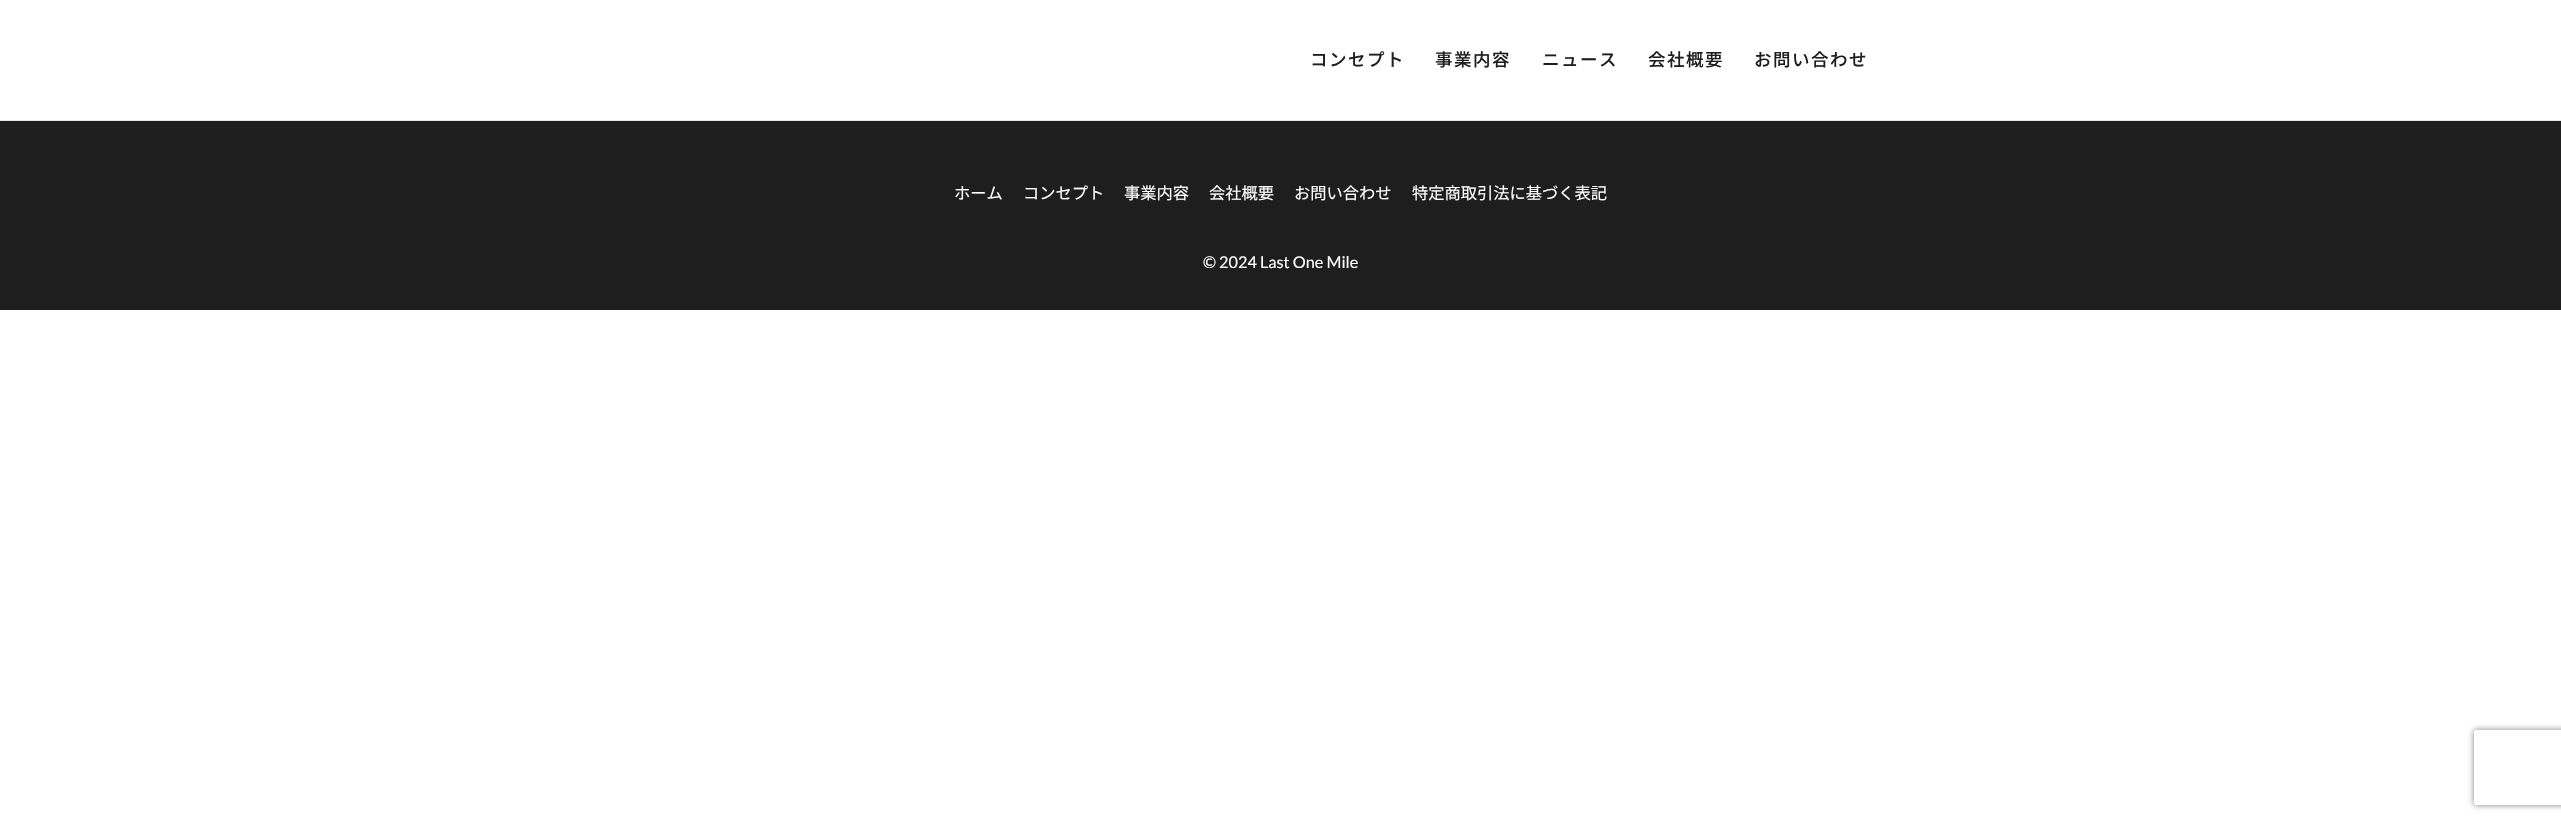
void draw(SkCanvas* canvas) {
  SkPaint paint;
  paint.setAntiAlias(true);
  auto face = [&](const char* family, int weight, float size, bool italic = false) {
    SkFontStyle style(weight, SkFontStyle::kNormal_Width,
      italic ? SkFontStyle::kItalic_Slant : SkFontStyle::kUpright_Slant);
    SkFont result(fontMgr->matchFamilyStyle(family, style), size);
    result.setSubpixel(true);
    return result;
  };
  auto writeSpaced = [&](const char* s, float x, float y, const SkFont& font, const SkPaint& ink, float letter, float word) {
    std::vector<SkGlyphID> glyphs(font.countText(s, strlen(s), SkTextEncoding::kUTF8));
    std::vector<float> xs(glyphs.size());
    font.textToGlyphs(s, strlen(s), SkTextEncoding::kUTF8, glyphs);
    font.getXPos(glyphs, xs, x);
    float extra = 0;
    for (size_t i = 0; i < glyphs.size(); i++) {
      xs[i] += extra;
      extra += letter + word * (glyphs[i] == font.unicharToGlyph(' '));
    }
    canvas->drawTextBlob(SkTextBlob::MakeFromPosHGlyphs(glyphs, xs, y, font), 0, 0, ink);
  };
  auto shape = [&](const char* data, bool evenOdd = false) {
    SkPath result = *SkParsePath::FromSVGString(data);
    if (evenOdd) result.setFillType(SkPathFillType::kEvenOdd);
    return result;
  };
  canvas->clear(0xffffffff);
  paint.setColor(0xffe6e6e6);
  canvas->drawRect(SkRect::MakeXYWH(0, 120, 2561, 1), paint);
  paint.setColor(0xff1e1e1e);
  canvas->drawRect(SkRect::MakeXYWH(0, 121, 2561, 189), paint);
  canvas->save();
  canvas->clipPath(shape("M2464 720H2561V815H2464ZM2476.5 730H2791.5C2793 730 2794 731 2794 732.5V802.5C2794 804 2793 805 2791.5 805H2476.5C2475 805 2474 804 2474 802.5V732.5C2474 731 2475 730 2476.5 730Z", true), true);
  paint.setColor(0xff808080);
  paint.setMaskFilter(SkMaskFilter::MakeBlur(kNormal_SkBlurStyle, 3));
  canvas->drawRoundRect(SkRect::MakeXYWH(2474, 730, 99, 75), 2.5f, 2.5f, paint);
  paint.setMaskFilter(nullptr);
  canvas->restore();
  auto f0 = face("Noto Sans JP", 500, 17.5f);
  paint.setColor(0xff1e1e1e);
  {
    const struct { const char* s; float x, y; } items[] = {
      {"コンセプト", 1310, 66},
      {"事業内容", 1435, 66},
      {"ニュース", 1542, 66},
      {"会社概要", 1648, 66},
      {"お問い合わせ", 1754, 66},
    };
    for (auto [s, x, y] : items) {
      writeSpaced(s, x, y, f0, paint, 1.5f, 0);
    }
  }
  auto f1 = face("Noto Sans JP", 400, 16.25f);
  paint.setColor(0xffffffff);
  {
    const struct { const char* s; float x, y; } items[] = {
      {"ホーム", 954, 199},
      {"コンセプト", 1023, 199},
      {"事業内容", 1124, 199},
      {"会社概要", 1209, 199},
      {"お問い合わせ", 1294, 199},
      {"特定商取引法に基づく表記", 1412, 199},
    };
    for (auto [s, x, y] : items) {
      canvas->drawString(s, x, y, f1, paint);
    }
  }
  auto f2 = face("Lato", 400, 16.25f);
  canvas->drawString("© 2024 Last One Mile", 1203, 268, f2, paint);
}
